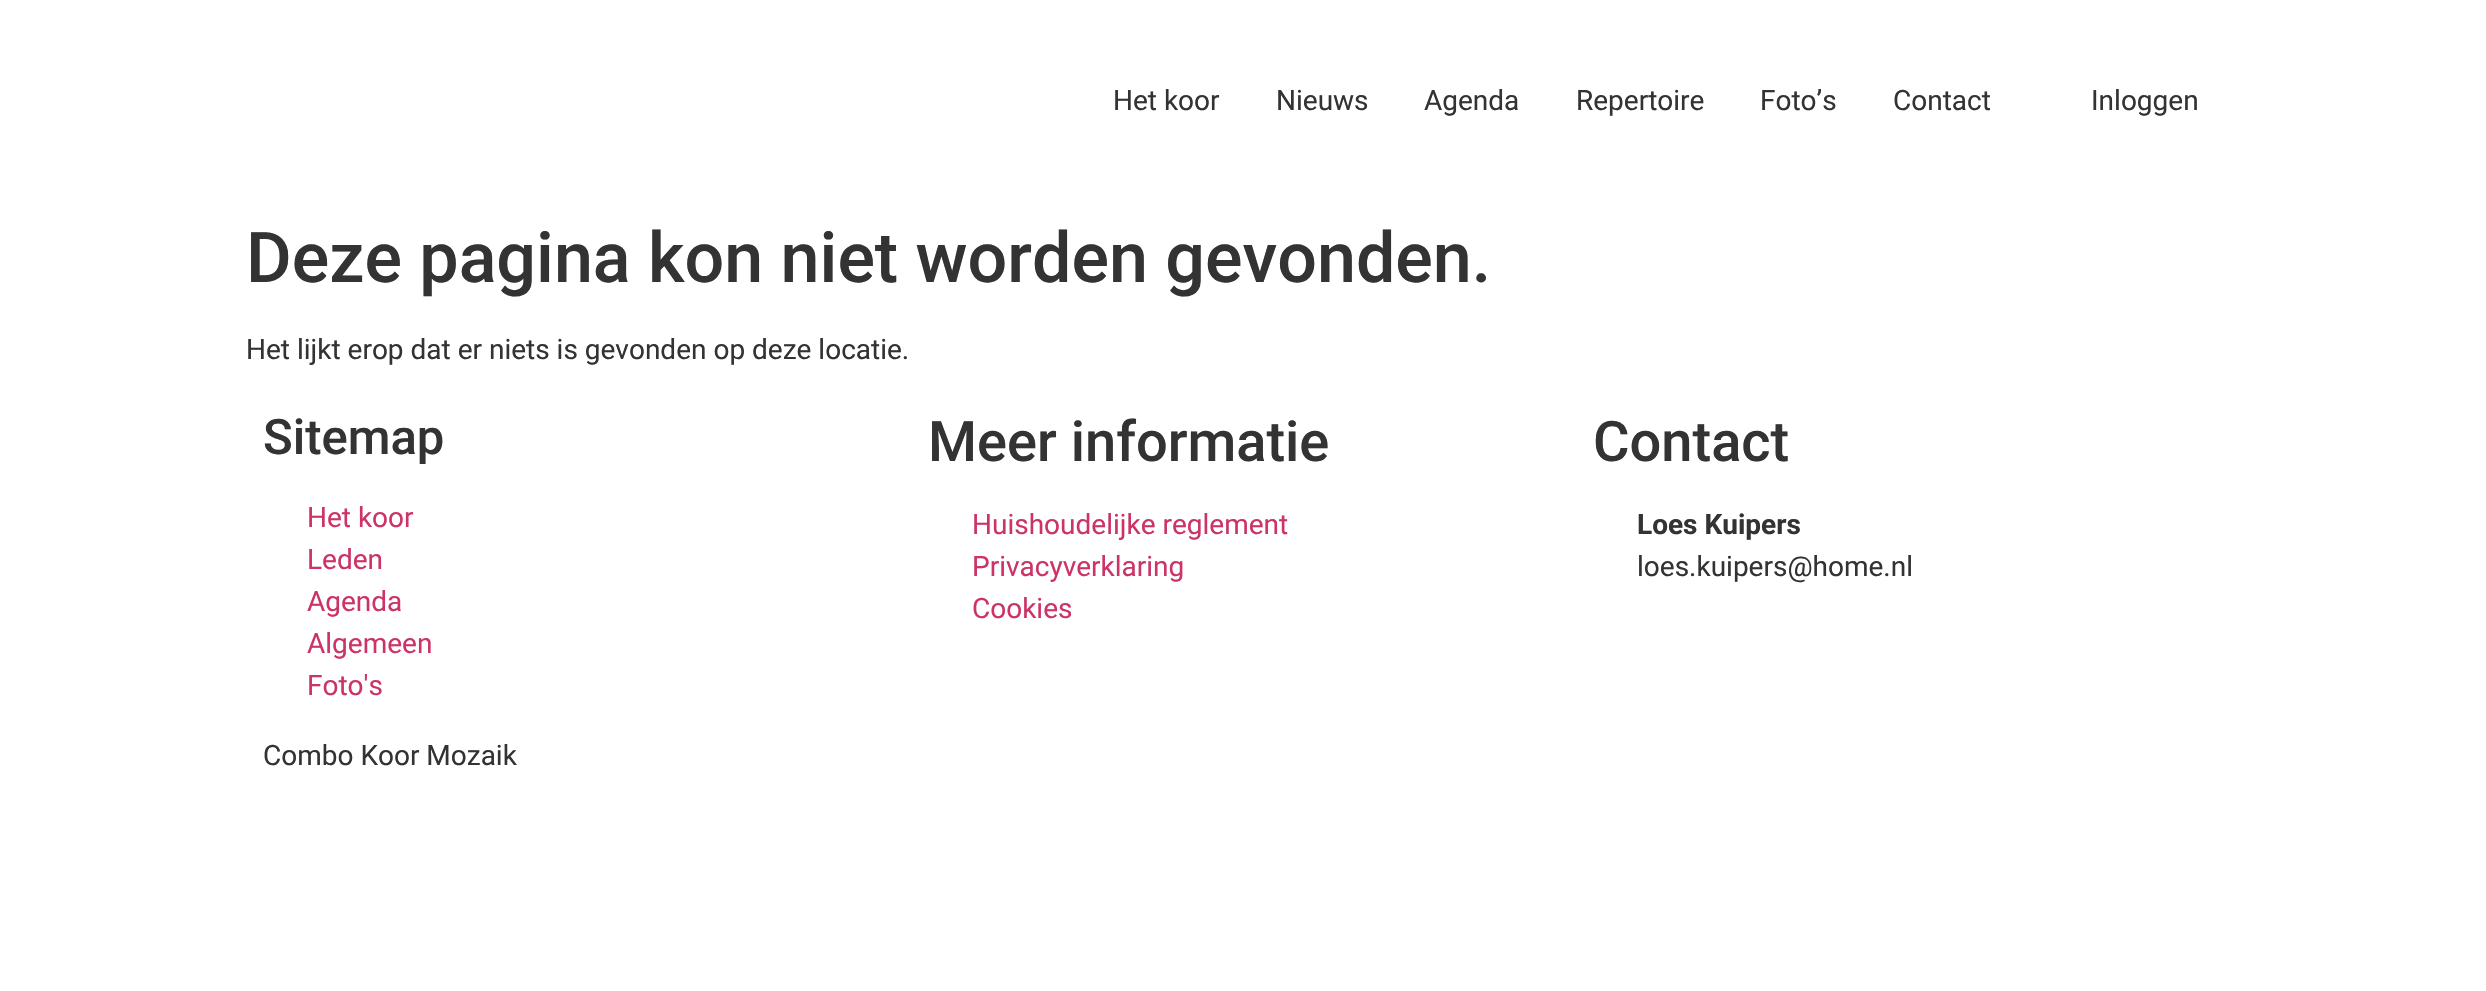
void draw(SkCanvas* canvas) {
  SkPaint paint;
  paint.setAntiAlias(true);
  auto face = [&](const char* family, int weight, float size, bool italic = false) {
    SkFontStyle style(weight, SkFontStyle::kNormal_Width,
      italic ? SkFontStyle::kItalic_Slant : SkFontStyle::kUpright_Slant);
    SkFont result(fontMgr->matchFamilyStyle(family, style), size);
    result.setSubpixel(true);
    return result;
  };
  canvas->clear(0xffffffff);
  auto f0 = face("Roboto", 400, 28);
  paint.setColor(0xff333333);
  {
    const struct { const char* s; float x, y; } items[] = {
      {"Het koor", 1113, 110},
      {"Nieuws", 1276, 110},
      {"Agenda", 1424, 110},
      {"Repertoire", 1576, 110},
      {"Foto’s", 1760, 110},
      {"Contact", 1893, 110},
      {"Inloggen", 2091, 110},
    };
    for (auto [s, x, y] : items) {
      canvas->drawString(s, x, y, f0, paint);
    }
  }
  auto f1 = face("Roboto", 500, 70);
  canvas->drawString("Deze pagina kon niet worden gevonden.", 246, 282, f1, paint);
  canvas->drawString("Het lijkt erop dat er niets is gevonden op deze locatie.", 246, 359, f0, paint);
  auto f2 = face("Roboto", 500, 49);
  canvas->drawString("Sitemap", 263, 454, f2, paint);
  paint.setColor(0xffcc3366);
  {
    const struct { const char* s; float x, y; } items[] = {
      {"Het koor", 307, 527},
      {"Leden", 307, 569},
      {"Agenda", 307, 611},
      {"Algemeen", 307, 653},
      {"Foto's", 307, 695},
    };
    for (auto [s, x, y] : items) {
      canvas->drawString(s, x, y, f0, paint);
    }
  }
  auto f3 = face("Roboto", 500, 56);
  paint.setColor(0xff333333);
  canvas->drawString("Meer informatie", 928, 461, f3, paint);
  paint.setColor(0xffcc3366);
  {
    const struct { const char* s; float x, y; } items[] = {
      {"Huishoudelijke reglement", 972, 534},
      {"Privacyverklaring", 972, 576},
      {"Cookies", 972, 618},
    };
    for (auto [s, x, y] : items) {
      canvas->drawString(s, x, y, f0, paint);
    }
  }
  paint.setColor(0xff333333);
  canvas->drawString("Contact", 1593, 461, f3, paint);
  auto f4 = face("Roboto", 700, 28);
  canvas->drawString("Loes Kuipers", 1637, 534, f4, paint);
  canvas->drawString("loes.kuipers@home.nl", 1637, 576, f0, paint);
  canvas->drawString("Combo Koor Mozaik", 263, 765, f0, paint);
}
